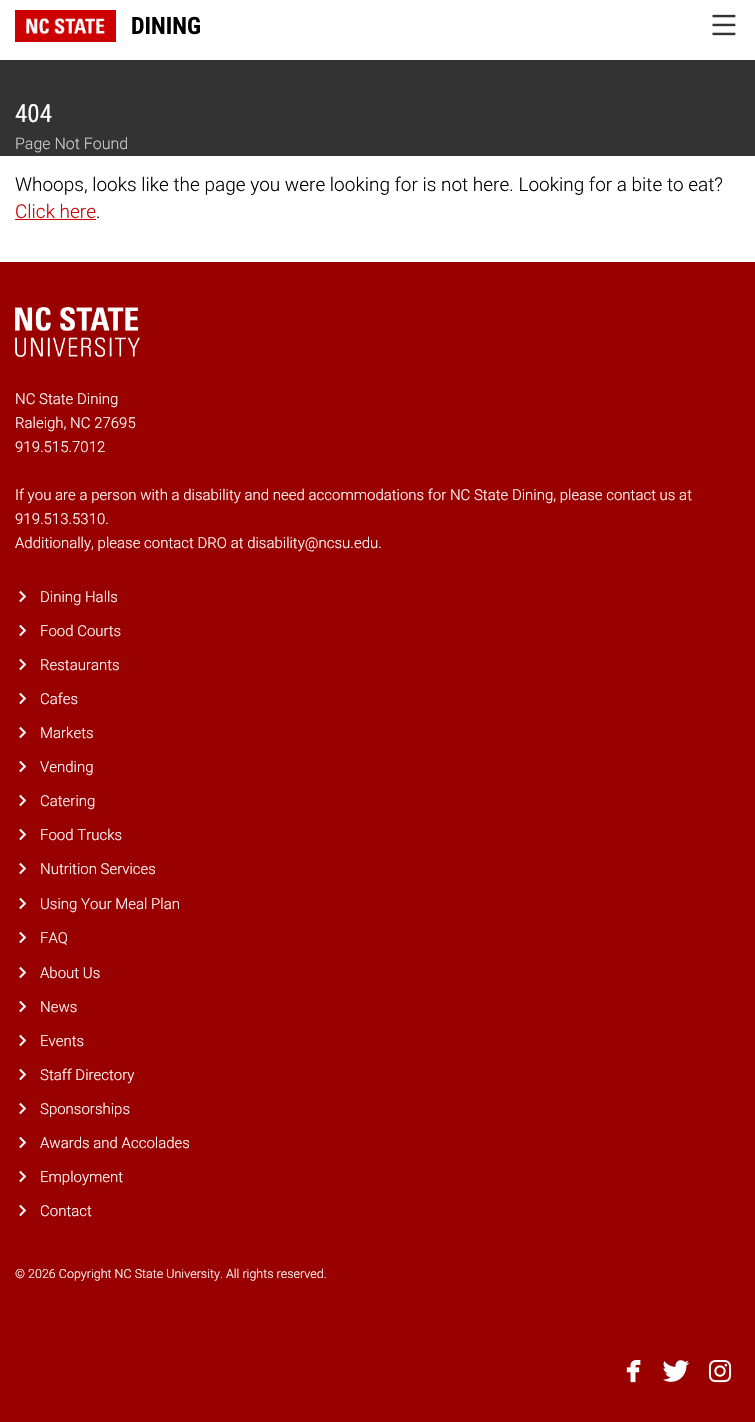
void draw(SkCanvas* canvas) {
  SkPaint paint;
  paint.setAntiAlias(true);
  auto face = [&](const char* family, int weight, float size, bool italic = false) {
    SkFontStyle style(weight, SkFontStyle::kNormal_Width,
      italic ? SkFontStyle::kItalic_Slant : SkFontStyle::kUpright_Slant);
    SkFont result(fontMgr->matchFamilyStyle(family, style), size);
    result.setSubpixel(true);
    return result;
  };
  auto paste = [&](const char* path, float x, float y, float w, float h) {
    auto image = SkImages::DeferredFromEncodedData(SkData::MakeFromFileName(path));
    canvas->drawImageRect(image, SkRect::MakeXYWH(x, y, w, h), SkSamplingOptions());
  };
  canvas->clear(0xffffffff);
  paste("img/1.png", 15, 10, 101, 32);
  paste("img/2.png", 712, 14, 24, 22);
  {
    const struct { float x, y, w, h; SkColor color; } items[] = {
      {0, 60, 755, 96, 0xff333333},
      {15, 219, 81, 1, 0xffcc0000},
      {0, 262, 755, 1160, 0xff990000},
    };
    for (auto [x, y, w, h, color] : items) {
      paint.setColor(color);
      canvas->drawRect(SkRect::MakeXYWH(x, y, w, h), paint);
    }
  }
  paste("img/3.png", 15, 307, 125, 50);
  paste("img/4.png", 19, 590, 8, 13);
  paste("img/4.png", 19, 624, 8, 13);
  paste("img/4.png", 19, 658, 8, 13);
  paste("img/4.png", 19, 692, 8, 13);
  paste("img/4.png", 19, 726, 8, 13);
  paste("img/4.png", 19, 760, 8, 13);
  paste("img/4.png", 19, 794, 8, 13);
  paste("img/4.png", 19, 828, 8, 13);
  paste("img/4.png", 19, 862, 8, 13);
  paste("img/4.png", 19, 897, 8, 13);
  paste("img/4.png", 19, 931, 8, 13);
  paste("img/4.png", 19, 966, 8, 13);
  paste("img/4.png", 19, 1000, 8, 13);
  paste("img/4.png", 19, 1034, 8, 13);
  paste("img/4.png", 19, 1068, 8, 13);
  paste("img/4.png", 19, 1102, 8, 13);
  paste("img/4.png", 19, 1136, 8, 13);
  paste("img/4.png", 19, 1170, 8, 13);
  paste("img/4.png", 19, 1204, 8, 13);
  paste("img/5.png", 626, 1360, 15, 23);
  paste("img/6.png", 663, 1360, 26, 22);
  paste("img/7.png", 708, 1360, 24, 23);
  auto f0 = face("Roboto Condensed", 700, 24);
  paint.setColor(0xff000000);
  canvas->drawString("DINING", 131, 34, f0, paint);
  auto f1 = face("Roboto Condensed", 400, 25);
  paint.setColor(0xffffffff);
  canvas->drawString("404", 15, 122, f1, paint);
  auto f2 = face("Roboto", 300, 16);
  paint.setColor(0xffcccccc);
  canvas->drawString("Page Not Found", 15, 149, f2, paint);
  auto f3 = face("Roboto", 300, 19);
  paint.setColor(0xff000000);
  canvas->drawString("Whoops, looks like the page you were looking for is not here. Looking for a bite to eat?", 15, 191, f3, paint);
  paint.setColor(0xffcc0000);
  canvas->drawString("Click here", 15, 218, f3, paint);
  paint.setColor(0xff000000);
  canvas->drawString(".", 96, 218, f3, paint);
  auto f4 = face("Roboto", 300, 15);
  paint.setColor(0xffffffff);
  {
    const struct { const char* s; float x, y; } items[] = {
      {"NC State Dining", 15, 404},
      {"Raleigh, NC 27695", 15, 428},
      {"919.515.7012", 15, 452},
      {"If you are a person with a disability and need accommodations for NC State Dining, please contact us at", 15, 500},
      {"919.513.5310.", 15, 524},
      {"Additionally, please contact DRO at disability@ncsu.edu.", 15, 548},
      {"Dining Halls", 40, 602},
      {"Food Courts", 40, 636},
      {"Restaurants", 40, 670},
      {"Cafes", 40, 704},
      {"Markets", 40, 738},
      {"Vending", 40, 772},
      {"Catering", 40, 806},
      {"Food Trucks", 40, 840},
      {"Nutrition Services", 40, 874},
      {"Using Your Meal Plan", 40, 909},
      {"FAQ", 40, 943},
      {"About Us", 40, 978},
      {"News", 40, 1012},
      {"Events", 40, 1046},
      {"Staff Directory", 40, 1080},
      {"Sponsorships", 40, 1114},
      {"Awards and Accolades", 40, 1148},
      {"Employment", 40, 1182},
      {"Contact", 40, 1216},
    };
    for (auto [s, x, y] : items) {
      canvas->drawString(s, x, y, f4, paint);
    }
  }
  auto f5 = face("Roboto", 300, 12.5f);
  canvas->drawString("© 2026 Copyright NC State University. All rights reserved.", 15, 1278, f5, paint);
}
